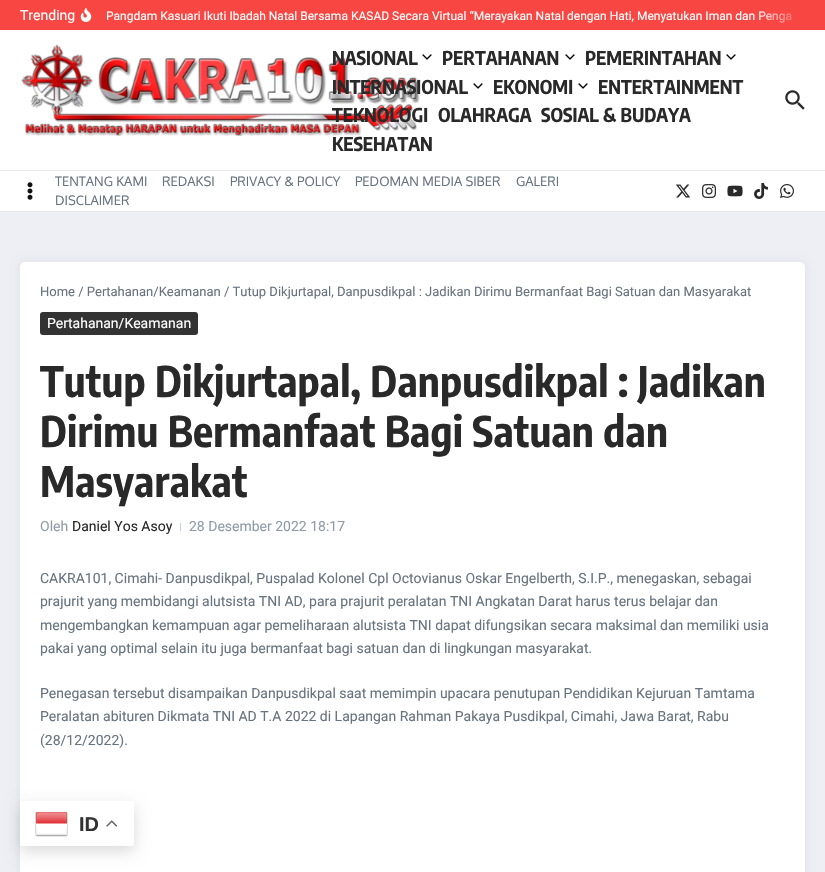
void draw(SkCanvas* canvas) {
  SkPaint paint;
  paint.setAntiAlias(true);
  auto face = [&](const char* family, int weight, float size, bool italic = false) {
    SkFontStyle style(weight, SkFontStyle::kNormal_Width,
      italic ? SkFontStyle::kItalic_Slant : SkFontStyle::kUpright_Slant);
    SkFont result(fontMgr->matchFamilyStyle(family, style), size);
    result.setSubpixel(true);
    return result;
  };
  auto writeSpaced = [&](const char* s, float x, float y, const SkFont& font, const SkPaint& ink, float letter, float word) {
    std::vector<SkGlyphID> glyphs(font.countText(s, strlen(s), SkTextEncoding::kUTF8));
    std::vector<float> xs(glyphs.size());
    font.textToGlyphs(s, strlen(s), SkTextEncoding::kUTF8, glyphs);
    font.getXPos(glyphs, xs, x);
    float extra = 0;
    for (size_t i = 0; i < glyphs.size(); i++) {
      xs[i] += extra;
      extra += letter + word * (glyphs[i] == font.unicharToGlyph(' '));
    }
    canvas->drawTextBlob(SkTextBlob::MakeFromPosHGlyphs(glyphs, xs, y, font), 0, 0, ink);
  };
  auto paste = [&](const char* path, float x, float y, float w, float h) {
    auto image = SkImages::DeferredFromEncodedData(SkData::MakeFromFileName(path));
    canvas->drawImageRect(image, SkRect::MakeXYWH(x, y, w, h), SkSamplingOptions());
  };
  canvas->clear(0xffeeeef5);
  paint.setColor(0xfff84643);
  canvas->drawRect(SkRect::MakeXYWH(0, 0, 825, 30), paint);
  paste("img/1.png", 80, 8, 12, 14);
  paint.setColor(0xffffffff);
  canvas->drawRect(SkRect::MakeXYWH(0, 30, 825, 140), paint);
  paint.setColor(0xffe8e8e8);
  canvas->drawRect(SkRect::MakeXYWH(0, 170, 825, 1), paint);
  paste("img/2.png", 21, 44, 399, 92);
  paste("img/3.png", 422, 54, 10, 6);
  paste("img/3.png", 565, 54, 10, 6);
  paste("img/3.png", 726, 54, 10, 6);
  paste("img/3.png", 473, 83, 10, 6);
  paste("img/3.png", 578, 83, 10, 6);
  paste("img/4.png", 785, 90, 20, 20);
  paint.setColor(0xffffffff);
  canvas->drawRect(SkRect::MakeXYWH(0, 171, 825, 40), paint);
  paint.setColor(0xffe8e8e8);
  canvas->drawRect(SkRect::MakeXYWH(0, 211, 825, 1), paint);
  paste("img/5.png", 27, 182, 6, 18);
  paste("img/6.png", 676, 184, 15, 14);
  paste("img/7.png", 702, 184, 14, 14);
  paste("img/8.png", 727, 185, 16, 12);
  paste("img/9.png", 754, 183, 14, 16);
  paste("img/10.png", 780, 184, 14, 14);
  paint.setColor(0x0d000000);
  paint.setMaskFilter(SkMaskFilter::MakeBlur(kNormal_SkBlurStyle, 4));
  canvas->drawRoundRect(SkRect::MakeXYWH(19, 261, 787, 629), 6, 6, paint);
  paint.setMaskFilter(nullptr);
  paint.setColor(0xffffffff);
  canvas->drawRoundRect(SkRect::MakeXYWH(20, 262, 785, 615), 5, 5, paint);
  paint.setColor(0xff333333);
  canvas->drawRoundRect(SkRect::MakeXYWH(40, 312, 158, 23), 3, 3, paint);
  paint.setColor(0xffc7cdd3);
  canvas->drawRect(SkRect::MakeXYWH(180, 523, 1, 8), paint);
  paint.setColor(0x26000000);
  paint.setMaskFilter(SkMaskFilter::MakeBlur(kNormal_SkBlurStyle, 7.5f));
  canvas->drawRoundRect(SkRect::MakeXYWH(20, 806, 114, 45), 2, 2, paint);
  paint.setMaskFilter(nullptr);
  paint.setColor(0xffffffff);
  canvas->drawRoundRect(SkRect::MakeXYWH(20, 801, 114, 45), 2, 2, paint);
  paste("img/11.png", 35, 811, 33, 26);
  paste("img/12.png", 106, 820, 11, 7);
  auto f0 = face("Roboto", 400, 14);
  canvas->drawString("Trending", 20, 20, f0, paint);
  auto f1 = face("Roboto", 400, 12);
  canvas->drawString("Pangdam Kasuari Ikuti Ibadah Natal Bersama KASAD Secara Virtual “Merayakan Natal dengan Hati, Menyatukan Iman dan Penga", 106, 20, f1, paint);
  {
    const SkColor colors[] = {0x00f84643, 0xfff84643};
    const float stops[] = {0, 1};
    const SkPoint ends[] = {{756, 16}, {806, 15}};
    paint.setShader(SkGradientShader::MakeLinear(ends, colors, stops, 2, SkTileMode::kClamp));
    paint.setAlpha(255);
  }
  canvas->drawRect(SkRect::MakeXYWH(759, 11, 33, 12), paint);
  auto f2 = face("Encode Sans Condensed", 700, 19);
  paint.setShader(nullptr);
  paint.setColor(0xff292929);
  {
    const struct { const char* s; float x, y; } items[] = {
      {"NASIONAL", 332, 65},
      {"PERTAHANAN", 442, 65},
      {"PEMERINTAHAN", 585, 65},
      {"INTERNASIONAL", 332, 94},
      {"EKONOMI", 493, 94},
      {"ENTERTAINMENT", 598, 94},
      {"TEKNOLOGI", 332, 122},
      {"OLAHRAGA", 438, 122},
      {"SOSIAL & BUDAYA", 541, 122},
      {"KESEHATAN", 332, 151},
    };
    for (auto [s, x, y] : items) {
      canvas->drawString(s, x, y, f2, paint);
    }
  }
  auto f3 = face("Oxygen", 400, 13);
  paint.setColor(0xff67737e);
  {
    const struct { const char* s; float x, y; } items[] = {
      {"TENTANG KAMI", 55, 186},
      {"REDAKSI", 162, 186},
      {"PRIVACY & POLICY", 230, 186},
      {"PEDOMAN MEDIA SIBER", 355, 186},
      {"GALERI", 516, 186},
      {"DISCLAIMER", 55, 205},
    };
    for (auto [s, x, y] : items) {
      canvas->drawString(s, x, y, f3, paint);
    }
  }
  auto f4 = face("Roboto", 400, 13);
  canvas->drawString("Home / Pertahanan/Keamanan / Tutup Dikjurtapal, Danpusdikpal : Jadikan Dirimu Bermanfaat Bagi Satuan dan Masyarakat", 40, 296, f4, paint);
  paint.setColor(0xffffffff);
  canvas->drawString("Pertahanan/Keamanan", 47, 328, f0, paint);
  auto f5 = face("Encode Sans Condensed", 700, 42);
  paint.setColor(0xff292929);
  {
    const struct { const char* s; float x, y; } items[] = {
      {"Tutup Dikjurtapal, Danpusdikpal : Jadikan", 40, 397},
      {"Dirimu Bermanfaat Bagi Satuan dan", 40, 447},
      {"Masyarakat", 40, 497},
    };
    for (auto [s, x, y] : items) {
      writeSpaced(s, x, y, f5, paint, 0.2f, 0);
    }
  }
  paint.setColor(0xff8e9ba7);
  canvas->drawString("Oleh", 40, 531, f0, paint);
  paint.setColor(0xff292929);
  canvas->drawString("Daniel Yos Asoy", 72, 531, f0, paint);
  paint.setColor(0xff8e9ba7);
  canvas->drawString("28 Desember 2022 18:17", 189, 531, f0, paint);
  paint.setColor(0xff67737e);
  {
    const struct { const char* s; float x, y; } items[] = {
      {"CAKRA101, Cimahi- Danpusdikpal, Puspalad Kolonel Cpl Octovianus Oskar Engelberth, S.I.P., menegaskan, sebagai", 40, 583},
      {"prajurit yang membidangi alutsista TNI AD, para prajurit peralatan TNI Angkatan Darat harus terus belajar dan", 40, 606},
      {"mengembangkan kemampuan agar pemeliharaan alutsista TNI dapat difungsikan secara maksimal dan memiliki usia", 40, 630},
      {"pakai yang optimal selain itu juga bermanfaat bagi satuan dan di lingkungan masyarakat.", 40, 653},
      {"Penegasan tersebut disampaikan Danpusdikpal saat memimpin upacara penutupan Pendidikan Kejuruan Tamtama", 40, 698},
      {"Peralatan abituren Dikmata TNI AD T.A 2022 di Lapangan Rahman Pakaya Pusdikpal, Cimahi, Jawa Barat, Rabu", 40, 721},
      {"(28/12/2022).", 40, 745},
    };
    for (auto [s, x, y] : items) {
      canvas->drawString(s, x, y, f0, paint);
    }
  }
  auto f6 = face("Liberation Sans", 700, 20);
  paint.setColor(0xff333333);
  canvas->drawString("ID", 79, 831, f6, paint);
}
